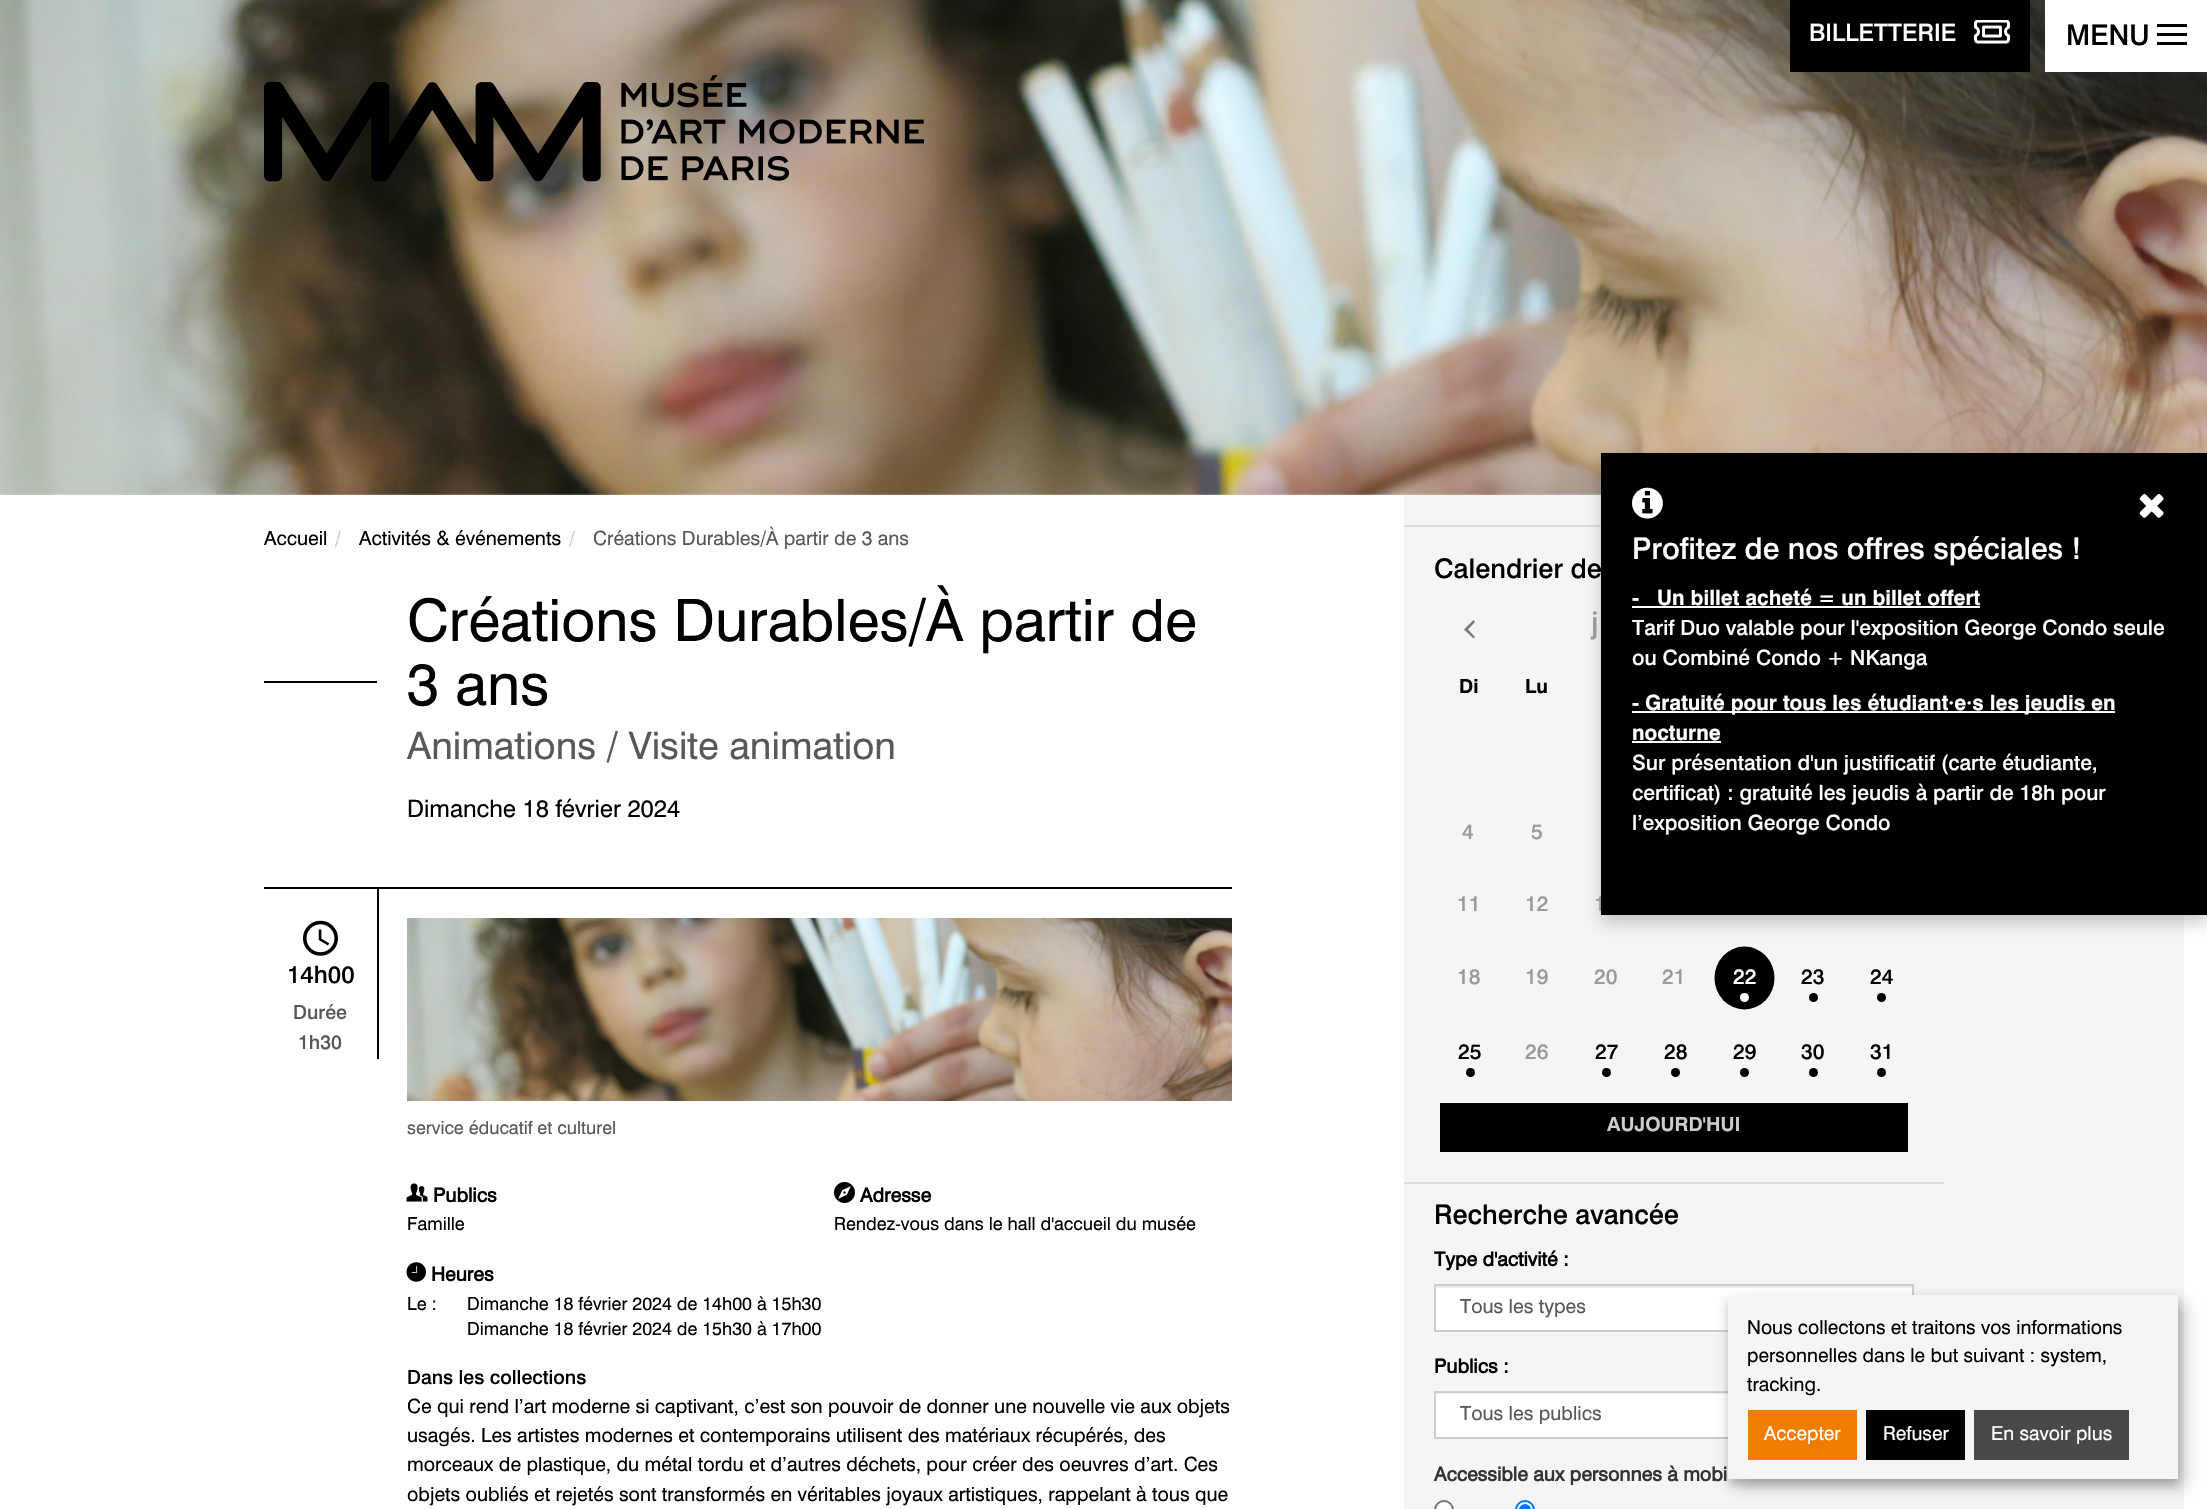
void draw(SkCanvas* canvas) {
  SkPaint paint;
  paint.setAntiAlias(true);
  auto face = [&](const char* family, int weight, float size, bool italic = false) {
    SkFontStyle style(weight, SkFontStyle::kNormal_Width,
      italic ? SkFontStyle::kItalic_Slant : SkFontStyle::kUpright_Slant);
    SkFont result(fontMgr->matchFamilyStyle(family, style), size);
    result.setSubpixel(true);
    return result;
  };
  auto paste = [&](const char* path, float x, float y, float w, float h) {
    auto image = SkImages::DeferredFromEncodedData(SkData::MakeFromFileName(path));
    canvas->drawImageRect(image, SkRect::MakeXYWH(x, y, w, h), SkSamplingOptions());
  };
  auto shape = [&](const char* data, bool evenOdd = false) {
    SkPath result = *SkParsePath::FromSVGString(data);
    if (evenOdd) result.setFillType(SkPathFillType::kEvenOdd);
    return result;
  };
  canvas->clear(0xffffffff);
  paste("img/2.png", 0, 0, 2207, 495);
  paint.setColor(0xff000000);
  canvas->drawRect(SkRect::MakeXYWH(1790, 0, 240, 72), paint);
  paste("img/1.png", 1974, 20, 36, 24);
  {
    const struct { float x, y, w, h; SkColor color; } items[] = {
      {2045, 0, 162, 72, 0xffffffff},
      {2157, 24, 30, 3, 0xff000000},
      {2157, 33, 30, 3, 0xff000000},
      {2157, 42, 30, 3, 0xff000000},
    };
    for (auto [x, y, w, h, color] : items) {
      paint.setColor(color);
      canvas->drawRect(SkRect::MakeXYWH(x, y, w, h), paint);
    }
  }
  paste("img/3.png", 264, 75, 660, 107);
  {
    const struct { float x, y, w, h; SkColor color; } items[] = {
      {1404, 495, 780, 1014, 0xfff5f5f5},
      {264, 681, 113, 2, 0xff000000},
      {264, 887, 968, 2, 0xff000000},
    };
    for (auto [x, y, w, h, color] : items) {
      paint.setColor(color);
      canvas->drawRect(SkRect::MakeXYWH(x, y, w, h), paint);
    }
  }
  paste("img/4.png", 303, 920, 35, 36);
  canvas->drawRect(SkRect::MakeXYWH(377, 888, 2, 171), paint);
  paste("img/5.png", 407, 918, 825, 183);
  paste("img/6.png", 406, 1183, 22, 19);
  paste("img/7.png", 834, 1182, 21, 21);
  paste("img/8.png", 406, 1262, 20, 20);
  paint.setColor(0xffdcdcdc);
  canvas->drawRect(SkRect::MakeXYWH(1404, 525, 197, 2), paint);
  paint.setColor(0xff000000);
  canvas->drawOval(SkRect::MakeXYWH(1714.5f, 946.5f, 60, 63), paint);
  paint.setColor(0xffffffff);
  canvas->drawCircle(1744.5f, 997.5f, 4.5f, paint);
  paint.setColor(0xff000000);
  canvas->drawCircle(1813.5f, 997.5f, 4.5f, paint);
  canvas->drawCircle(1881.5f, 997.5f, 4.5f, paint);
  canvas->drawCircle(1470.5f, 1072.5f, 4.5f, paint);
  canvas->drawCircle(1606.5f, 1072.5f, 4.5f, paint);
  canvas->drawCircle(1675.5f, 1072.5f, 4.5f, paint);
  canvas->drawCircle(1744.5f, 1072.5f, 4.5f, paint);
  canvas->drawCircle(1813.5f, 1072.5f, 4.5f, paint);
  canvas->drawCircle(1881.5f, 1072.5f, 4.5f, paint);
  canvas->drawRect(SkRect::MakeXYWH(1440, 1103, 468, 49), paint);
  paint.setColor(0xff7b7b7b);
  canvas->drawPath(shape("M1475 622L1468 629.5L1475 637L1473.5 638.5L1464 629.5L1473.5 620Z"), paint);
  {
    const struct { float x, y, w, h; SkColor color; } items[] = {
      {1404, 1182, 540, 2, 0xffdcdcdc},
      {1436, 1288, 476, 42, 0xffffffff},
      {1436, 1286, 477, 2, 0xffececec},
    };
    for (auto [x, y, w, h, color] : items) {
      paint.setColor(color);
      canvas->drawRect(SkRect::MakeXYWH(x, y, w, h), paint);
    }
  }
  paint.setStroke(true);
  paint.setStrokeWidth(2);
  paint.setColor(0xffcccccc);
  canvas->drawRect(SkRect::MakeXYWH(1435, 1285, 478, 46), paint);
  paint.setStroke(false);
  paint.setColor(0xffffffff);
  canvas->drawRect(SkRect::MakeXYWH(1436, 1394, 292, 43), paint);
  paint.setColor(0xffececec);
  canvas->drawRect(SkRect::MakeXYWH(1436, 1393, 292, 1), paint);
  paint.setStroke(true);
  paint.setColor(0xffcccccc);
  canvas->drawRect(SkRect::MakeXYWH(1435, 1392, 478, 46), paint);
  paint.setStroke(false);
  paint.setColor(0xffffffff);
  canvas->drawPath(shape("M1444 1500C1449.5 1500 1454 1504.5 1454 1510V1509H1434V1510C1434 1504.5 1438.5 1500 1444 1500Z"), paint);
  paint.setStroke(true);
  paint.setColor(0xff767676);
  canvas->drawCircle(1444, 1510, 9, paint);
  paint.setStroke(false);
  paint.setColor(0xffffffff);
  canvas->drawPath(shape("M1525 1500C1530.5 1500 1535 1504.5 1535 1510V1509H1515V1510C1515 1504.5 1519.5 1500 1525 1500Z"), paint);
  paint.setStroke(true);
  paint.setColor(0xff0075ff);
  canvas->drawCircle(1525, 1510, 9, paint);
  paint.setStroke(false);
  canvas->drawCircle(1525, 1510, 6, paint);
  paint.setColor(0x33000000);
  paint.setMaskFilter(SkMaskFilter::MakeBlur(kNormal_SkBlurStyle, 7.5f));
  canvas->drawRect(SkRect::MakeXYWH(1601, 461, 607, 462), paint);
  paint.setMaskFilter(nullptr);
  paint.setColor(0x30000000);
  paint.setMaskFilter(SkMaskFilter::MakeBlur(kNormal_SkBlurStyle, 7.5f));
  canvas->drawRect(SkRect::MakeXYWH(1736, 1302, 450, 185), paint);
  paint.setMaskFilter(nullptr);
  paint.setColor(0x33000000);
  paint.setMaskFilter(SkMaskFilter::MakeBlur(kNormal_SkBlurStyle, 4.5f));
  canvas->drawRect(SkRect::MakeXYWH(1728, 1301, 450, 184), paint);
  paint.setMaskFilter(nullptr);
  {
    const struct { float x, y, w, h; SkColor color; } items[] = {
      {1728, 1295, 450, 184, 0xfff5f5f5},
      {1748, 1410, 109, 50, 0xfff07d00},
      {1866, 1410, 99, 50, 0xff000000},
      {1974, 1410, 155, 50, 0xff494948},
    };
    for (auto [x, y, w, h, color] : items) {
      paint.setColor(color);
      canvas->drawRect(SkRect::MakeXYWH(x, y, w, h), paint);
    }
  }
  auto f0 = face("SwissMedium", 500, 24);
  paint.setColor(0xffffffff);
  canvas->drawString("BILLETTERIE", 1809, 41, f0, paint);
  auto f1 = face("SwissMedium", 500, 28.5f);
  paint.setColor(0xff000000);
  canvas->drawString("MENU", 2066, 45, f1, paint);
  auto f2 = face("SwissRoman", 400, 19.5f);
  canvas->drawString("Accueil", 264, 545, f2, paint);
  paint.setColor(0xffcccccc);
  canvas->drawString("/", 335, 545, f2, paint);
  paint.setColor(0xff000000);
  canvas->drawString("Activités & événements", 359, 545, f2, paint);
  paint.setColor(0xffcccccc);
  canvas->drawString("/", 569, 545, f2, paint);
  paint.setColor(0xff585858);
  canvas->drawString("Créations Durables/À partir de 3 ans", 593, 545, f2, paint);
  auto f3 = face("SwissRoman", 400, 58.5f);
  paint.setColor(0xff000000);
  canvas->drawString("Créations Durables/À partir de", 407, 641, f3, paint);
  canvas->drawString("3 ans", 407, 705, f3, paint);
  auto f4 = face("SwissRoman", 400, 38);
  paint.setColor(0xff585858);
  canvas->drawString("Animations / Visite animation", 407, 759, f4, paint);
  auto f5 = face("SwissRoman", 400, 24);
  paint.setColor(0xff000000);
  canvas->drawString("Dimanche 18 février 2024", 407, 817, f5, paint);
  canvas->drawString("14h00", 287, 983, f0, paint);
  auto f6 = face("SwissMedium", 500, 19.5f);
  paint.setColor(0xff585858);
  canvas->drawString("Durée", 293, 1019, f6, paint);
  canvas->drawString("1h30", 298, 1049, f6, paint);
  auto f7 = face("SwissRoman", 400, 18);
  canvas->drawString("service éducatif et culturel", 407, 1134, f7, paint);
  auto f8 = face("SwissRoman", 700, 19.5f);
  paint.setColor(0xff000000);
  canvas->drawString("Publics", 433, 1202, f8, paint);
  canvas->drawString("Famille", 407, 1230, f7, paint);
  canvas->drawString("Adresse", 860, 1202, f8, paint);
  canvas->drawString("Rendez-vous dans le hall d'accueil du musée", 834, 1230, f7, paint);
  canvas->drawString("Heures", 431, 1281, f8, paint);
  {
    const struct { const char* s; float x, y; } items[] = {
      {"Le :", 407, 1310},
      {"Dimanche 18 février 2024 de 14h00 à 15h30", 467, 1310},
      {"Dimanche 18 février 2024 de 15h30 à 17h00", 467, 1335},
    };
    for (auto [s, x, y] : items) {
      canvas->drawString(s, x, y, f7, paint);
    }
  }
  canvas->drawString("Dans les collections", 407, 1384, f6, paint);
  {
    const struct { const char* s; float x, y; } items[] = {
      {"Ce qui rend l’art moderne si captivant, c’est son pouvoir de donner une nouvelle vie aux objets", 407, 1413},
      {"usagés. Les artistes modernes et contemporains utilisent des matériaux récupérés, des", 407, 1442},
      {"morceaux de plastique, du métal tordu et d’autres déchets, pour créer des oeuvres d’art. Ces", 407, 1471},
      {"objets oubliés et rejetés sont transformés en véritables joyaux artistiques, rappelant à tous que", 407, 1501},
    };
    for (auto [s, x, y] : items) {
      canvas->drawString(s, x, y, f2, paint);
    }
  }
  auto f9 = face("SwissMedium", 500, 27);
  canvas->drawString("Calendrier de", 1434, 578, f9, paint);
  auto f10 = face("SwissMedium", 500, 30);
  paint.setColor(0xff999999);
  canvas->drawString("j", 1591, 633, f10, paint);
  auto f11 = face("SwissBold", 700, 19.5f);
  paint.setColor(0xff000000);
  canvas->drawString("Di", 1459, 693, f11, paint);
  canvas->drawString("Lu", 1525, 693, f11, paint);
  auto f12 = face("SwissMedium", 500, 21);
  paint.setColor(0xff999999);
  {
    const struct { const char* s; float x, y; } items[] = {
      {"4", 1462, 839},
      {"5", 1531, 839},
      {"11", 1457, 911},
      {"12", 1525, 911},
      {"1", 1594, 911},
      {"18", 1457, 984},
      {"19", 1525, 984},
      {"20", 1594, 984},
      {"21", 1662, 984},
    };
    for (auto [s, x, y] : items) {
      canvas->drawString(s, x, y, f12, paint);
    }
  }
  paint.setColor(0xffffffff);
  canvas->drawString("22", 1733, 984, f12, paint);
  paint.setColor(0xff000000);
  {
    const struct { const char* s; float x, y; } items[] = {
      {"23", 1801, 984},
      {"24", 1870, 984},
      {"25", 1458, 1059},
    };
    for (auto [s, x, y] : items) {
      canvas->drawString(s, x, y, f12, paint);
    }
  }
  paint.setColor(0xff999999);
  canvas->drawString("26", 1525, 1059, f12, paint);
  paint.setColor(0xff000000);
  {
    const struct { const char* s; float x, y; } items[] = {
      {"27", 1595, 1059},
      {"28", 1664, 1059},
      {"29", 1733, 1059},
      {"30", 1801, 1059},
      {"31", 1870, 1059},
    };
    for (auto [s, x, y] : items) {
      canvas->drawString(s, x, y, f12, paint);
    }
  }
  paint.setColor(0xffcccccc);
  canvas->drawString("AUJOURD'HUI", 1607, 1131, f11, paint);
  paint.setColor(0xff000000);
  canvas->drawString("Recherche avancée", 1434, 1224, f9, paint);
  canvas->drawString("Type d'activité :", 1434, 1266, f8, paint);
  paint.setColor(0xff585858);
  canvas->drawString("Tous les types", 1460, 1313, f2, paint);
  paint.setColor(0xff000000);
  canvas->drawString("Publics :", 1434, 1373, f8, paint);
  paint.setColor(0xff585858);
  canvas->drawString("Tous les publics", 1460, 1420, f2, paint);
  paint.setColor(0xff333333);
  canvas->drawString("Accessible aux personnes à mobi", 1434, 1481, f8, paint);
  paint.setColor(0xff000000);
  canvas->drawRect(SkRect::MakeXYWH(1601, 453, 606, 462), paint);
  paste("img/9.png", 2139, 494, 25, 24);
  paste("img/10.png", 1632, 487, 31, 32);
  paint.setColor(0xffffffff);
  canvas->drawString("Profitez de nos offres spéciales !", 1632, 559, f10, paint);
  auto f13 = face("SwissBold", 700, 21);
  canvas->drawString("-", 1632, 605, f13, paint);
  canvas->drawString("Un billet acheté = un billet offert", 1657, 605, f13, paint);
  canvas->drawRect(SkRect::MakeXYWH(1632, 606, 348, 2), paint);
  canvas->drawString("Tarif Duo valable pour l'exposition George Condo seule", 1632, 635, f12, paint);
  canvas->drawString("ou Combiné Condo + NKanga", 1632, 665, f12, paint);
  canvas->drawRect(SkRect::MakeXYWH(1632, 711, 483, 2), paint);
  canvas->drawString("- Gratuité pour tous les étudiant·e·s les jeudis en", 1632, 710, f13, paint);
  canvas->drawString("nocturne", 1632, 740, f13, paint);
  canvas->drawRect(SkRect::MakeXYWH(1632, 741, 89, 2), paint);
  {
    const struct { const char* s; float x, y; } items[] = {
      {"Sur présentation d'un justificatif (carte étudiante,", 1632, 770},
      {"certificat) : gratuité les jeudis à partir de 18h pour", 1632, 800},
      {"l’exposition George Condo", 1632, 830},
    };
    for (auto [s, x, y] : items) {
      canvas->drawString(s, x, y, f12, paint);
    }
  }
  auto f14 = face("SwissRoman", 400, 19.25f);
  paint.setColor(0xff000000);
  {
    const struct { const char* s; float x, y; } items[] = {
      {"Nous collectons et traitons vos informations", 1747, 1334},
      {"personnelles dans le but suivant : system,", 1747, 1362},
      {"tracking.", 1747, 1391},
    };
    for (auto [s, x, y] : items) {
      canvas->drawString(s, x, y, f14, paint);
    }
  }
  paint.setColor(0xffffffff);
  {
    const struct { const char* s; float x, y; } items[] = {
      {"Accepter", 1764, 1440},
      {"Refuser", 1883, 1440},
      {"En savoir plus", 1991, 1440},
    };
    for (auto [s, x, y] : items) {
      canvas->drawString(s, x, y, f14, paint);
    }
  }
}
